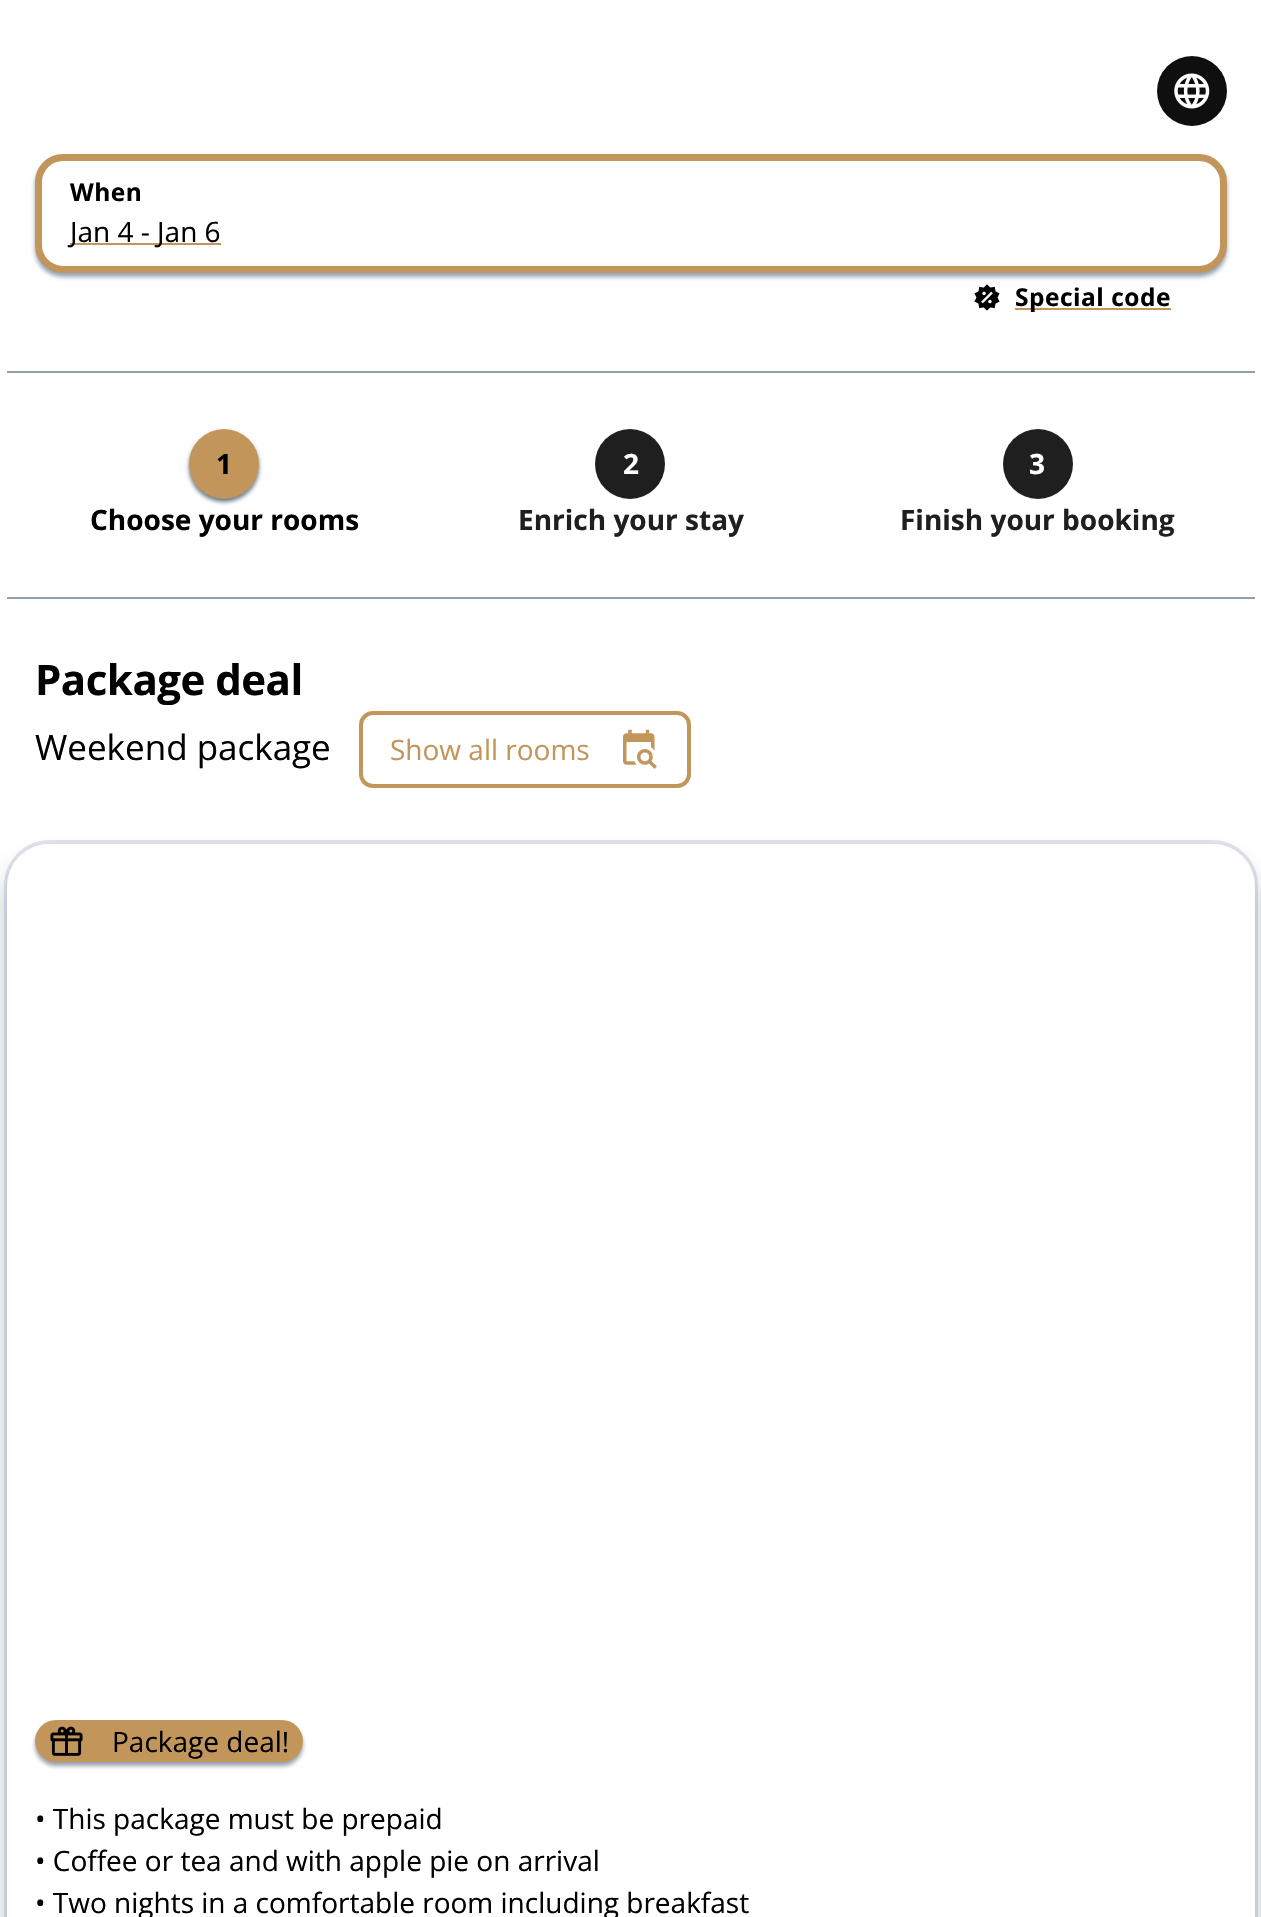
void draw(SkCanvas* canvas) {
  SkPaint paint;
  paint.setAntiAlias(true);
  auto face = [&](const char* family, int weight, float size, bool italic = false) {
    SkFontStyle style(weight, SkFontStyle::kNormal_Width,
      italic ? SkFontStyle::kItalic_Slant : SkFontStyle::kUpright_Slant);
    SkFont result(fontMgr->matchFamilyStyle(family, style), size);
    result.setSubpixel(true);
    return result;
  };
  auto writeSpaced = [&](const char* s, float x, float y, const SkFont& font, const SkPaint& ink, float letter, float word) {
    std::vector<SkGlyphID> glyphs(font.countText(s, strlen(s), SkTextEncoding::kUTF8));
    std::vector<float> xs(glyphs.size());
    font.textToGlyphs(s, strlen(s), SkTextEncoding::kUTF8, glyphs);
    font.getXPos(glyphs, xs, x);
    float extra = 0;
    for (size_t i = 0; i < glyphs.size(); i++) {
      xs[i] += extra;
      extra += letter + word * (glyphs[i] == font.unicharToGlyph(' '));
    }
    canvas->drawTextBlob(SkTextBlob::MakeFromPosHGlyphs(glyphs, xs, y, font), 0, 0, ink);
  };
  auto paste = [&](const char* path, float x, float y, float w, float h) {
    auto image = SkImages::DeferredFromEncodedData(SkData::MakeFromFileName(path));
    canvas->drawImageRect(image, SkRect::MakeXYWH(x, y, w, h), SkSamplingOptions());
  };
  canvas->clear(0xffffffff);
  paint.setColor(0xff939eae);
  canvas->drawRect(SkRect::MakeXYWH(7, 371, 1248, 2), paint);
  paint.setColor(0xff0f0f0f);
  canvas->drawCircle(1192, 91, 35, paint);
  paste("img/1.png", 1174, 73, 36, 36);
  paint.setColor(0xff94a3b8);
  paint.setMaskFilter(SkMaskFilter::MakeBlur(kNormal_SkBlurStyle, 2));
  canvas->drawRoundRect(SkRect::MakeXYWH(35, 158, 1192, 119), 28, 28, paint);
  paint.setMaskFilter(nullptr);
  paint.setColor(0xffffffff);
  canvas->drawRoundRect(SkRect::MakeXYWH(38.5f, 157.5f, 1185, 112), 24.5f, 24.5f, paint);
  paint.setStroke(true);
  paint.setStrokeWidth(7);
  paint.setColor(0xffc2965b);
  canvas->drawRoundRect(SkRect::MakeXYWH(38.5f, 157.5f, 1185, 112), 24.5f, 24.5f, paint);
  paint.setStroke(false);
  canvas->drawRect(SkRect::MakeXYWH(70, 243, 151, 2), paint);
  paste("img/2.png", 974, 284, 26, 27);
  canvas->drawRect(SkRect::MakeXYWH(1015, 308, 156, 2), paint);
  paint.setColor(0xff939eae);
  canvas->drawRect(SkRect::MakeXYWH(7, 597, 1248, 2), paint);
  paint.setColor(0xff64748b);
  paint.setMaskFilter(SkMaskFilter::MakeBlur(kNormal_SkBlurStyle, 2));
  canvas->drawRoundRect(SkRect::MakeXYWH(189, 432, 70, 70), 35, 35, paint);
  paint.setMaskFilter(nullptr);
  paint.setColor(0xffc2965b);
  canvas->drawCircle(224, 464, 35, paint);
  paint.setColor(0xff1f1f1f);
  canvas->drawCircle(630, 464, 35, paint);
  canvas->drawCircle(1038, 464, 35, paint);
  paint.setStroke(true);
  paint.setStrokeWidth(4);
  paint.setColor(0xffc2965b);
  canvas->drawRoundRect(SkRect::MakeXYWH(361, 713, 328, 73), 12, 12, paint);
  paste("img/3.png", 623, 729, 34, 40);
  paint.setStroke(false);
  paint.setColor(0x8064748b);
  paint.setMaskFilter(SkMaskFilter::MakeBlur(kNormal_SkBlurStyle, 13));
  canvas->drawRoundRect(SkRect::MakeXYWH(7, 861, 1248, 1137), 42, 42, paint);
  paint.setMaskFilter(nullptr);
  paint.setStroke(true);
  paint.setColor(0x4d94a3b8);
  canvas->drawRoundRect(SkRect::MakeXYWH(6, 842, 1250, 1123), 44, 44, paint);
  paint.setStroke(false);
  paint.setColor(0xffffffff);
  canvas->drawRoundRect(SkRect::MakeXYWH(7, 844, 1248, 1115), 42, 42, paint);
  paint.setColor(0x80334155);
  paint.setMaskFilter(SkMaskFilter::MakeBlur(kNormal_SkBlurStyle, 2));
  canvas->drawRoundRect(SkRect::MakeXYWH(35, 1724, 268, 42), 21, 21, paint);
  paint.setMaskFilter(nullptr);
  paint.setColor(0xffc2965b);
  canvas->drawRoundRect(SkRect::MakeXYWH(35, 1720, 268, 42), 21, 21, paint);
  paste("img/4.png", 50, 1726, 33, 30);
  auto f0 = face("Open Sans", 700, 24.5f);
  paint.setColor(0xff000000);
  writeSpaced("When", 70, 201, f0, paint, 0.5f, 0);
  auto f1 = face("Open Sans", 400, 28);
  canvas->drawString("Jan 4 - Jan 6", 70, 242, f1, paint);
  writeSpaced("Special code", 1015, 306, f0, paint, 0.5f, 0);
  auto f2 = face("Open Sans", 700, 28);
  canvas->drawString("1", 216, 474, f2, paint);
  canvas->drawString("Choose your rooms", 90, 530, f2, paint);
  paint.setColor(0xffffffff);
  canvas->drawString("2", 623, 474, f2, paint);
  paint.setColor(0xff1f1f1f);
  canvas->drawString("Enrich your stay", 518, 530, f2, paint);
  paint.setColor(0xffffffff);
  canvas->drawString("3", 1029, 474, f2, paint);
  paint.setColor(0xff1f1f1f);
  canvas->drawString("Finish your booking", 900, 530, f2, paint);
  auto f3 = face("Open Sans", 700, 42);
  paint.setColor(0xff000000);
  writeSpaced("Package deal", 35, 695, f3, paint, -0.5f, 0);
  auto f4 = face("Open Sans", 400, 35);
  canvas->drawString("Weekend package", 35, 760, f4, paint);
  paint.setColor(0xffc2965b);
  canvas->drawString("Show all rooms", 390, 760, f1, paint);
  paint.setColor(0xff000000);
  {
    const struct { const char* s; float x, y; } items[] = {
      {"Package deal!", 112, 1752},
      {"• This package must be prepaid", 35, 1829},
      {"• Coffee or tea and with apple pie on arrival", 35, 1871},
      {"• Two nights in a comfortable room including breakfast", 35, 1913},
    };
    for (auto [s, x, y] : items) {
      canvas->drawString(s, x, y, f1, paint);
    }
  }
}
